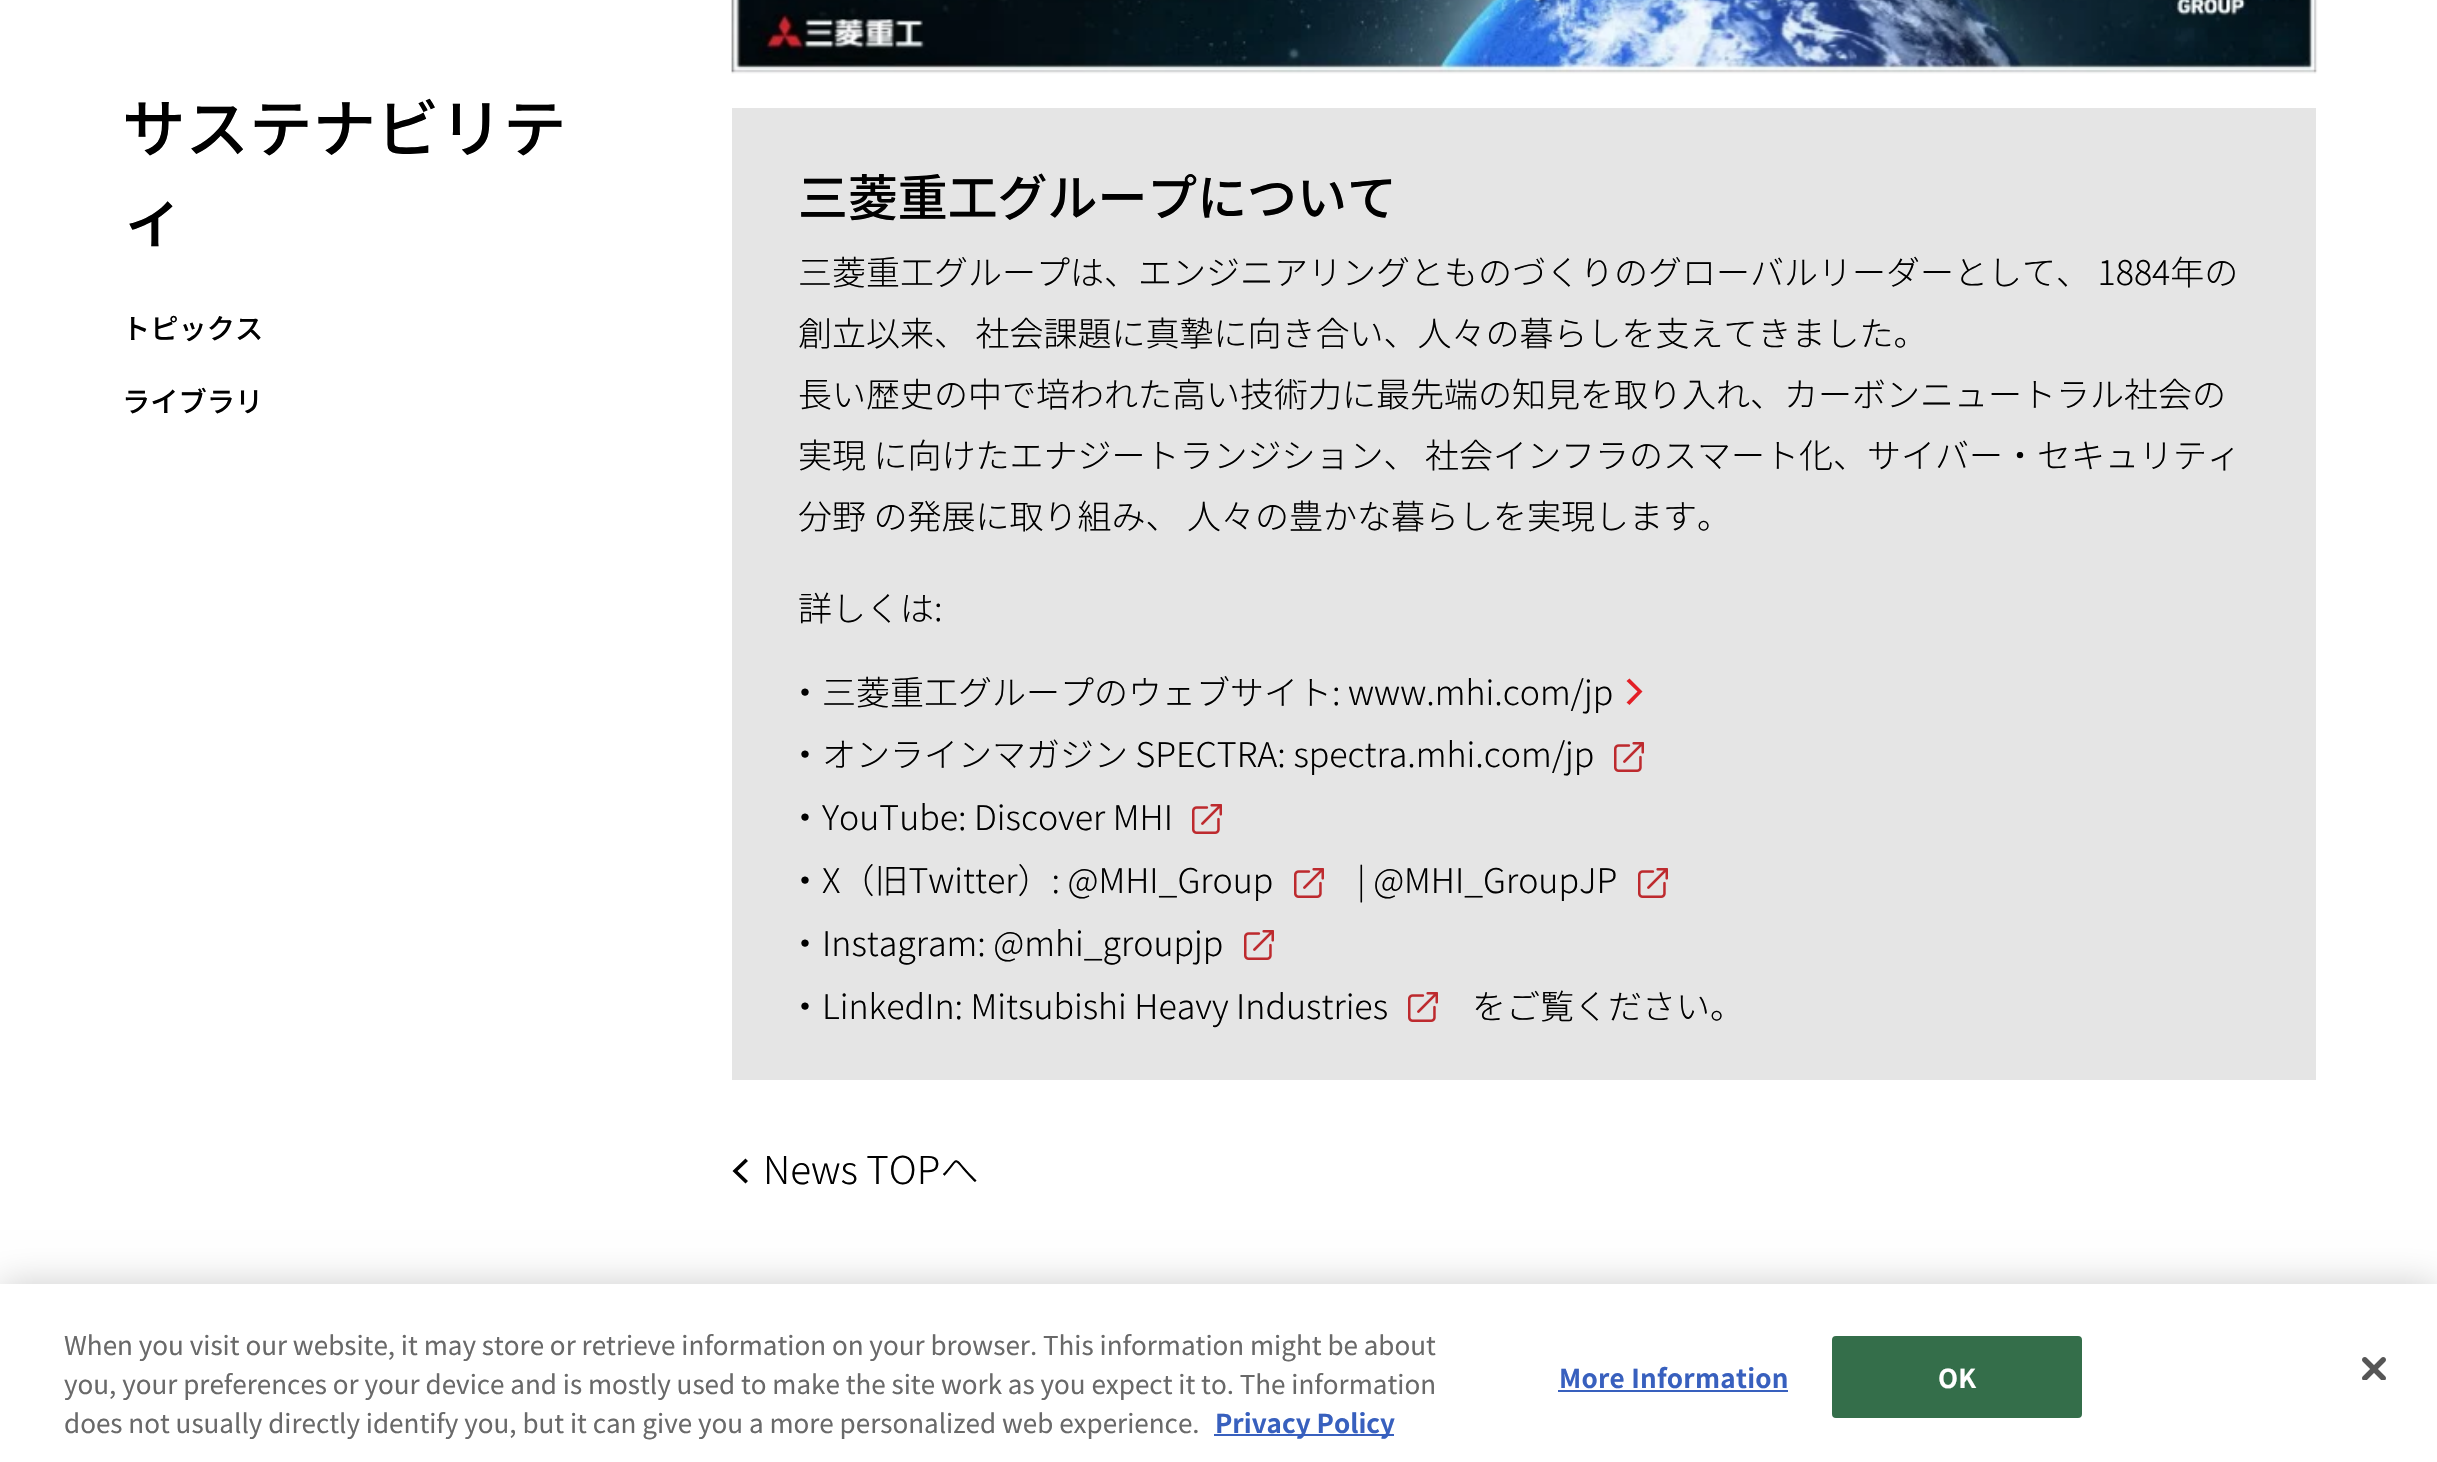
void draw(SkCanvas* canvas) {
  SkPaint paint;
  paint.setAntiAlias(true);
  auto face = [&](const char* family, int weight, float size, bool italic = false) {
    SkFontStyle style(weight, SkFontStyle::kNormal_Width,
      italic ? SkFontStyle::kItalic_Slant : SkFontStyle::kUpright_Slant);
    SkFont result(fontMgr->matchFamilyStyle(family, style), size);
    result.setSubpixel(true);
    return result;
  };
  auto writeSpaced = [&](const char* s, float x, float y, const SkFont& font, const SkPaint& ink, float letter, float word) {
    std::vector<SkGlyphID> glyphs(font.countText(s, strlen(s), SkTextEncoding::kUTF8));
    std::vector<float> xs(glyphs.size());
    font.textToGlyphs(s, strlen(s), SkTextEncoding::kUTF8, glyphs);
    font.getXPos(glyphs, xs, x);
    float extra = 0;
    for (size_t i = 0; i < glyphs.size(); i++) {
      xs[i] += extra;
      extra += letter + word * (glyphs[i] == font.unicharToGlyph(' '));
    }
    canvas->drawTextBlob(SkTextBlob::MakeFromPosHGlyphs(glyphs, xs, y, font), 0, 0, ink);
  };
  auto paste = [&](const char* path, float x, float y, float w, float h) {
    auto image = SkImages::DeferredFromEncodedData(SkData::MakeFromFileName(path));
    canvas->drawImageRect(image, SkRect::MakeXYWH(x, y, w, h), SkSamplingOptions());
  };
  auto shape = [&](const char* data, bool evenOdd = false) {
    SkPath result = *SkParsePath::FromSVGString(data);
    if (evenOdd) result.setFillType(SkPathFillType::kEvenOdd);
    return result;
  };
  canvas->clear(0xffffffff);
  paste("img/1.png", 731, 0, 1587, 74);
  paint.setColor(0xffe5e5e5);
  canvas->drawRect(SkRect::MakeXYWH(732, 108, 1584, 972), paint);
  paint.setColor(0xffe31f26);
  canvas->drawPath(shape("M1629.5 678.5L1626.5 681L1637.5 691.5L1626.5 702.5L1629.5 705L1642.5 691.5Z"), paint);
  paste("img/2.png", 1614, 742, 30, 30);
  paste("img/2.png", 1192, 804, 30, 30);
  paste("img/2.png", 1294, 868, 30, 30);
  paste("img/2.png", 1638, 868, 30, 30);
  paste("img/2.png", 1244, 930, 30, 30);
  paste("img/2.png", 1408, 992, 30, 30);
  paint.setColor(0xff000000);
  canvas->drawPath(shape("M745.5 1158.5L748 1161L737.5 1171L748 1181L745.5 1183.5L732.5 1171Z"), paint);
  paint.setColor(0x33000000);
  paint.setMaskFilter(SkMaskFilter::MakeBlur(kNormal_SkBlurStyle, 18));
  canvas->drawRect(SkRect::MakeXYWH(0, 1284, 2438, 178), paint);
  paint.setMaskFilter(nullptr);
  {
    const struct { float x, y, w, h; SkColor color; } items[] = {
      {0, 1284, 2437, 178, 0xffffffff},
      {1214, 1434, 180, 2, 0xff3860be},
      {1558, 1390, 230, 2, 0xff3860be},
    };
    for (auto [x, y, w, h, color] : items) {
      paint.setColor(color);
      canvas->drawRect(SkRect::MakeXYWH(x, y, w, h), paint);
    }
  }
  paint.setColor(0xff346e4a);
  canvas->drawRoundRect(SkRect::MakeXYWH(1833, 1337, 248, 80), 3, 3, paint);
  paint.setStroke(true);
  paint.setStrokeWidth(2);
  canvas->drawRoundRect(SkRect::MakeXYWH(1833, 1337, 248, 80), 3, 3, paint);
  paste("img/3.png", 2362, 1357, 24, 23);
  auto f0 = face("Noto Sans JP", 500, 63.5f);
  paint.setStroke(false);
  paint.setColor(0xff000000);
  canvas->drawString("サステナビリテ", 122, 152, f0, paint);
  canvas->drawString("ィ", 122, 241, f0, paint);
  auto f1 = face("Noto Sans JP", 500, 28.25f);
  canvas->drawString("トピックス", 122, 339, f1, paint);
  canvas->drawString("ライブラリ", 122, 412, f1, paint);
  auto f2 = face("Noto Sans JP", 500, 49.9f);
  canvas->drawString("三菱重工グループについて", 798, 216, f2, paint);
  auto f3 = face("Noto Sans JP", 300, 34);
  {
    const struct { const char* s; float x, y; } items[] = {
      {"三菱重工グループは、エンジニアリングとものづくりのグローバルリーダーとして、 1884年の", 798, 285},
      {"創立以来、 社会課題に真摯に向き合い、人々の暮らしを支えてきました。", 798, 346},
      {"長い歴史の中で培われた高い技術力に最先端の知見を取り入れ、カーボンニュートラル社会の", 798, 407},
      {"実現 に向けたエナジートランジション、 社会インフラのスマート化、サイバー・セキュリティ", 798, 468},
      {"分野 の発展に取り組み、 人々の豊かな暮らしを実現します。", 798, 529},
      {"詳しくは:", 798, 621},
    };
    for (auto [s, x, y] : items) {
      canvas->drawString(s, x, y, f3, paint);
    }
  }
  auto f4 = face("Noto Sans JP", 400, 34);
  canvas->drawString("・", 788, 705, f4, paint);
  canvas->drawString("三菱重工グループのウェブサイト: www.mhi.com/jp", 822, 705, f3, paint);
  canvas->drawString("・", 788, 767, f4, paint);
  canvas->drawString("オンラインマガジン SPECTRA: spectra.mhi.com/jp", 822, 767, f3, paint);
  canvas->drawString("・", 788, 830, f4, paint);
  canvas->drawString("YouTube: Discover MHI", 822, 830, f3, paint);
  canvas->drawString("・", 788, 893, f4, paint);
  canvas->drawString("X（旧Twitter）: @MHI_Group", 822, 893, f3, paint);
  canvas->drawString("| @MHI_GroupJP", 1357, 893, f3, paint);
  canvas->drawString("・", 788, 956, f4, paint);
  canvas->drawString("Instagram: @mhi_groupjp", 822, 956, f3, paint);
  canvas->drawString("・", 788, 1019, f4, paint);
  canvas->drawString("LinkedIn: Mitsubishi Heavy Industries", 822, 1019, f3, paint);
  canvas->drawString("をご覧ください。", 1472, 1019, f3, paint);
  auto f5 = face("Noto Sans JP", 300, 38.5f);
  canvas->drawString("News TOPへ", 763, 1184, f5, paint);
  auto f6 = face("Noto Sans JP", 400, 26.02f);
  paint.setColor(0xff696969);
  {
    const struct { const char* s; float x, y; } items[] = {
      {"When you visit our website, it may store or retrieve information on your browser. This information might be about", 64, 1355},
      {"you, your preferences or your device and is mostly used to make the site work as you expect it to. The information", 64, 1394},
      {"does not usually directly identify you, but it can give you a more personalized web experience.", 64, 1433},
    };
    for (auto [s, x, y] : items) {
      canvas->drawString(s, x, y, f6, paint);
    }
  }
  auto f7 = face("Noto Sans JP", 700, 26.02f);
  paint.setColor(0xff3860be);
  canvas->drawString("Privacy Policy", 1215, 1433, f7, paint);
  writeSpaced("More Information", 1559, 1388, f7, paint, 0.25f, 0);
  paint.setColor(0xffffffff);
  writeSpaced("OK", 1938, 1388, f7, paint, 0.25f, 0);
}
